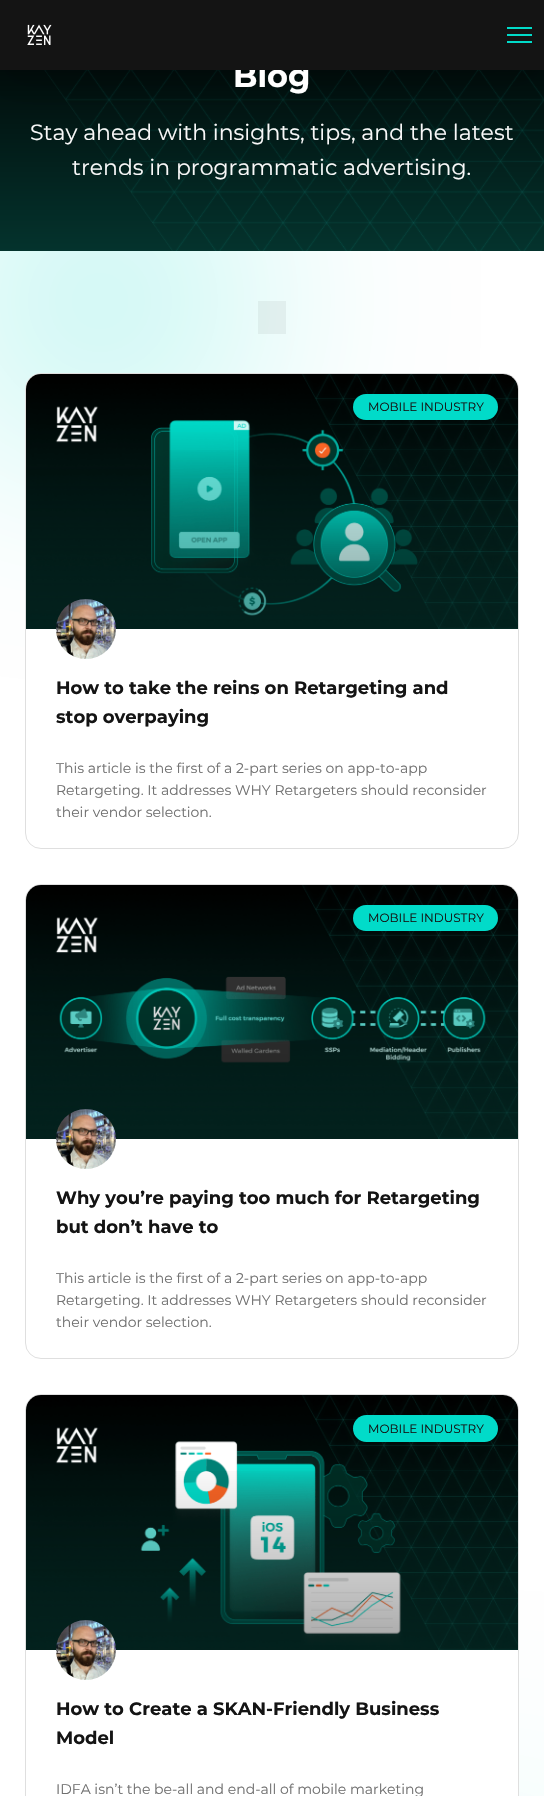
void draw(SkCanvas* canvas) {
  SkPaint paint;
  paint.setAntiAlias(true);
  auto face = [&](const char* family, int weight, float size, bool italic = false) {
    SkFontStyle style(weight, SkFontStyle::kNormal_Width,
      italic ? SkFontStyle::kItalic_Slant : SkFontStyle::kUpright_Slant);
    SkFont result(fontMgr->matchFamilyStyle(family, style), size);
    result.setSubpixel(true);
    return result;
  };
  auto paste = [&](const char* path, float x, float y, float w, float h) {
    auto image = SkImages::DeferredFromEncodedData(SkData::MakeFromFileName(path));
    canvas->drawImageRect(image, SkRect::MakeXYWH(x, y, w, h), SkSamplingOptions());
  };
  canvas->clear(0xffffffff);
  paint.setColor(0xff67eadf);
  paint.setMaskFilter(SkMaskFilter::MakeBlur(kNormal_SkBlurStyle, 150));
  canvas->drawRoundRect(SkRect::MakeXYWH(0, 201, 200, 200), 100, 100, paint);
  paint.setMaskFilter(nullptr);
  {
    const SkColor colors[] = {0xff000000, 0xff04332d};
    const float stops[] = {0, 1};
    const SkPoint ends[] = {{272, 7}, {272, 251}};
    paint.setShader(SkGradientShader::MakeLinear(ends, colors, stops, 2, SkTileMode::kClamp));
    paint.setAlpha(255);
  }
  canvas->drawRect(SkRect::MakeXYWH(0, 70, 544, 181), paint);
  paste("img/2.png", 44, 70, 500, 181);
  paint.setShader(nullptr);
  paint.setColor(0x4d000000);
  paint.setMaskFilter(SkMaskFilter::MakeBlur(kNormal_SkBlurStyle, 20));
  canvas->drawRect(SkRect::MakeXYWH(0, 7, 544, 70), paint);
  paint.setMaskFilter(nullptr);
  paint.setColor(0x0d000000);
  canvas->drawRect(SkRect::MakeXYWH(258, 301, 28, 33), paint);
  paint.setColor(0xffffffff);
  canvas->drawRoundRect(SkRect::MakeXYWH(25.5f, 373.5f, 493, 475), 15.5f, 15.5f, paint);
  paint.setStroke(true);
  paint.setStrokeWidth(1);
  paint.setColor(0xffdfdfdf);
  canvas->drawRoundRect(SkRect::MakeXYWH(25.5f, 373.5f, 493, 475), 15.5f, 15.5f, paint);
  paste("img/3.png", 26, 374, 492, 255);
  paint.setStroke(false);
  {
    const SkColor colors[] = {0x59000000, 0x00000000};
    const float stops[] = {0, 0.75f};
    const SkPoint ends[] = {{272, 629}, {272, 374}};
    paint.setShader(SkGradientShader::MakeLinear(ends, colors, stops, 2, SkTileMode::kClamp));
    paint.setAlpha(255);
  }
  canvas->drawRect(SkRect::MakeXYWH(26, 450, 492, 179), paint);
  paint.setShader(nullptr);
  paint.setColor(0xff01dbc9);
  canvas->drawRoundRect(SkRect::MakeXYWH(353, 394, 145, 26), 13, 13, paint);
  paste("img/4.png", 56, 599, 60, 60);
  paint.setStroke(true);
  paint.setColor(0xffdfdfdf);
  canvas->drawRoundRect(SkRect::MakeXYWH(25.5f, 884.5f, 493, 474), 15.5f, 15.5f, paint);
  paste("img/5.png", 26, 885, 492, 254);
  paint.setStroke(false);
  {
    const SkColor colors[] = {0x59000000, 0x00000000};
    const float stops[] = {0, 0.75f};
    const SkPoint ends[] = {{272, 1139}, {272, 885}};
    paint.setShader(SkGradientShader::MakeLinear(ends, colors, stops, 2, SkTileMode::kClamp));
    paint.setAlpha(255);
  }
  canvas->drawRect(SkRect::MakeXYWH(26, 977, 492, 162), paint);
  paint.setShader(nullptr);
  paint.setColor(0xff01dbc9);
  canvas->drawRoundRect(SkRect::MakeXYWH(353, 905, 145, 26), 13, 13, paint);
  paste("img/6.png", 56, 1109, 60, 60);
  paint.setColor(0xff67e9df);
  paint.setMaskFilter(SkMaskFilter::MakeBlur(kNormal_SkBlurStyle, 150));
  canvas->drawRoundRect(SkRect::MakeXYWH(394, 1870, 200, 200), 100, 100, paint);
  paint.setMaskFilter(nullptr);
  paint.setColor(0xffffffff);
  canvas->drawRoundRect(SkRect::MakeXYWH(25.5f, 1394.5f, 493, 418), 15.5f, 15.5f, paint);
  paint.setStroke(true);
  paint.setColor(0xffdfdfdf);
  canvas->drawRoundRect(SkRect::MakeXYWH(25.5f, 1394.5f, 493, 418), 15.5f, 15.5f, paint);
  paste("img/7.png", 26, 1395, 492, 255);
  paint.setStroke(false);
  {
    const SkColor colors[] = {0x59000000, 0x00000000};
    const float stops[] = {0, 0.75f};
    const SkPoint ends[] = {{272, 1650}, {272, 1395}};
    paint.setShader(SkGradientShader::MakeLinear(ends, colors, stops, 2, SkTileMode::kClamp));
    paint.setAlpha(255);
  }
  canvas->drawRect(SkRect::MakeXYWH(26, 1471, 492, 179), paint);
  paint.setShader(nullptr);
  paint.setColor(0xff01dbc9);
  canvas->drawRoundRect(SkRect::MakeXYWH(353, 1415, 145, 27), 13.5f, 13.5f, paint);
  paste("img/8.png", 56, 1620, 60, 60);
  auto f0 = face("Montserrat", 700, 32);
  paint.setColor(0xffffffff);
  canvas->drawString("Blog", 233, 87, f0, paint);
  {
    const struct { float x, y, w, h; SkColor color; } items[] = {
      {0, 0, 544, 70, 0xff141414},
      {507, 41, 25, 2, 0xff01dbc9},
      {507, 34, 25, 2, 0xff01dbc9},
      {507, 27, 25, 2, 0xff01dbc9},
    };
    for (auto [x, y, w, h, color] : items) {
      paint.setColor(color);
      canvas->drawRect(SkRect::MakeXYWH(x, y, w, h), paint);
    }
  }
  paste("img/1.png", 27, 24, 25, 21);
  auto f1 = face("Montserrat", 400, 22);
  paint.setColor(0xfff9f9f9);
  canvas->drawString("Stay ahead with insights, tips, and the latest", 30, 140, f1, paint);
  canvas->drawString("trends in programmatic advertising.", 72, 175, f1, paint);
  auto f2 = face("Montserrat", 400, 12);
  paint.setColor(0xff141414);
  canvas->drawString("MOBILE INDUSTRY", 368, 411, f2, paint);
  auto f3 = face("Montserrat", 700, 18);
  canvas->drawString("How to take the reins on Retargeting and", 56, 694, f3, paint);
  canvas->drawString("stop overpaying", 56, 723, f3, paint);
  auto f4 = face("Montserrat", 400, 14);
  paint.setColor(0xff707070);
  {
    const struct { const char* s; float x, y; } items[] = {
      {"This article is the first of a 2-part series on app-to-app", 56, 773},
      {"Retargeting. It addresses WHY Retargeters should reconsider", 56, 795},
      {"their vendor selection.", 56, 817},
    };
    for (auto [s, x, y] : items) {
      canvas->drawString(s, x, y, f4, paint);
    }
  }
  paint.setColor(0xff141414);
  canvas->drawString("MOBILE INDUSTRY", 368, 922, f2, paint);
  canvas->drawString("Why you’re paying too much for Retargeting", 56, 1204, f3, paint);
  canvas->drawString("but don’t have to", 56, 1233, f3, paint);
  paint.setColor(0xff707070);
  {
    const struct { const char* s; float x, y; } items[] = {
      {"This article is the first of a 2-part series on app-to-app", 56, 1283},
      {"Retargeting. It addresses WHY Retargeters should reconsider", 56, 1305},
      {"their vendor selection.", 56, 1327},
    };
    for (auto [s, x, y] : items) {
      canvas->drawString(s, x, y, f4, paint);
    }
  }
  paint.setColor(0xff141414);
  canvas->drawString("MOBILE INDUSTRY", 368, 1433, f2, paint);
  canvas->drawString("How to Create a SKAN-Friendly Business", 56, 1715, f3, paint);
  canvas->drawString("Model", 56, 1744, f3, paint);
  paint.setColor(0xff707070);
  canvas->drawString("IDFA isn’t the be-all and end-all of mobile marketing", 56, 1794, f4, paint);
}
